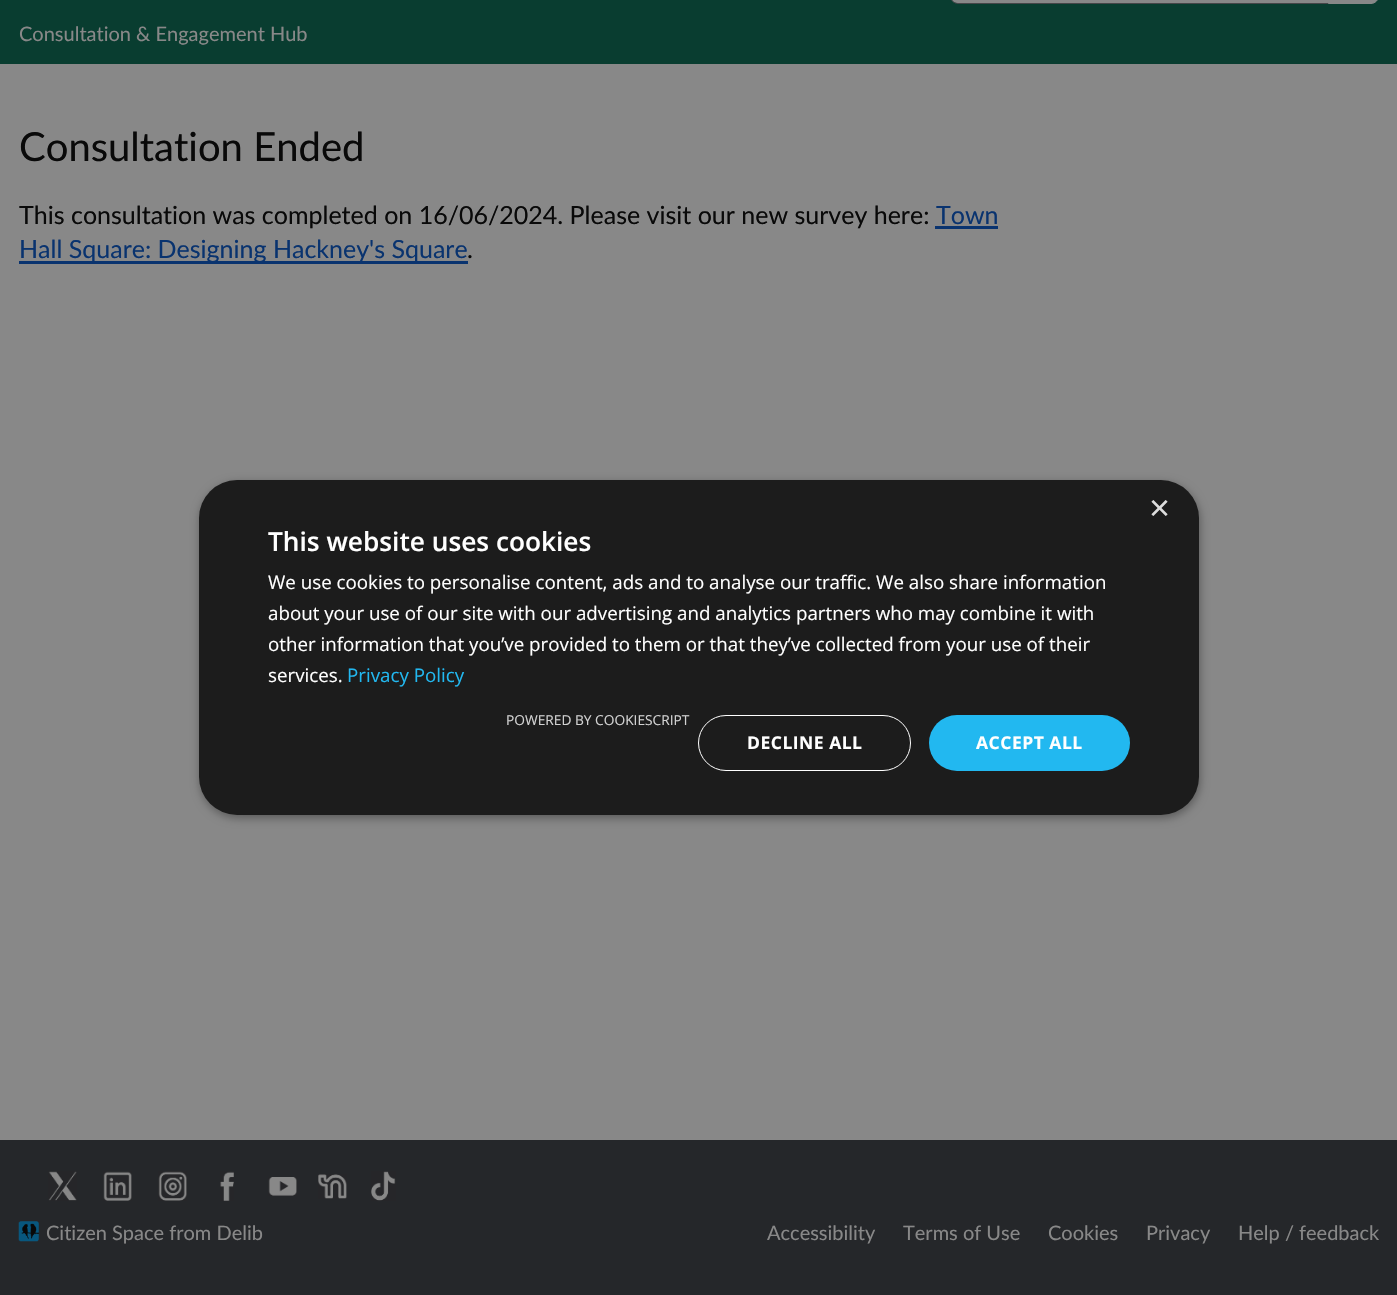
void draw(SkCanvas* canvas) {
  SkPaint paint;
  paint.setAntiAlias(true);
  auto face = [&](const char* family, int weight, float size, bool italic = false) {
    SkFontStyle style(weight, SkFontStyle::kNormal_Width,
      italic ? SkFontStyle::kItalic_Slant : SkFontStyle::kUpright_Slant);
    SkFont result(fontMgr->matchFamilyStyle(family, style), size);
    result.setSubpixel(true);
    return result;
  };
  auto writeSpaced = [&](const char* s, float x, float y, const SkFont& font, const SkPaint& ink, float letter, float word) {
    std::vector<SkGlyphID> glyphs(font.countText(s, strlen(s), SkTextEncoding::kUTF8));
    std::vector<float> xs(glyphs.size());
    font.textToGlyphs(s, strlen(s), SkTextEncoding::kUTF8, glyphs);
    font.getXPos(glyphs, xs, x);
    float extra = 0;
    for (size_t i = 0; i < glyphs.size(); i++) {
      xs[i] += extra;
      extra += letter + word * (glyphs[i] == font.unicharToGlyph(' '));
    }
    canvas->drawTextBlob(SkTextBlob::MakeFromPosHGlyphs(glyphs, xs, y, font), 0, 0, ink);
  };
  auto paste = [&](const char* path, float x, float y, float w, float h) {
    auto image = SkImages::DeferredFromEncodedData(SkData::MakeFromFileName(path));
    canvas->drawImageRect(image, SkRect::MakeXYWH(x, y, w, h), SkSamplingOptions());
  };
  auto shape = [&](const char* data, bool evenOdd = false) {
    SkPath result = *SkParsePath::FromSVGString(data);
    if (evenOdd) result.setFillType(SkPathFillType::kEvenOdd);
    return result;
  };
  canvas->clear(0xff888888);
  paint.setColor(0xff093d30);
  canvas->drawRect(SkRect::MakeXYWH(0, 0, 1397, 64), paint);
  paint.setColor(0xff888888);
  canvas->drawPath(shape("M957-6H1328V3H957C953.5 3 951 .5 951-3V0C951-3.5 953.5-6 957-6Z"), paint);
  paint.setStroke(true);
  paint.setStrokeWidth(1);
  paint.setColor(0xff464649);
  canvas->drawPath(shape("M958-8.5H1328.5V3.5H958C954 3.5 950.5 0 950.5-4V-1C950.5-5 954-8.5 958-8.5Z"), paint);
  paint.setStroke(false);
  paint.setColor(0xff888888);
  canvas->drawPath(shape("M1328.5-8.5H1371C1375-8.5 1378.5-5 1378.5-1V-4C1378.5 0 1375 3.5 1371 3.5H1328.5Z"), paint);
  paint.setStroke(true);
  canvas->drawPath(shape("M1328.5-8.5H1371C1375-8.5 1378.5-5 1378.5-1V-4C1378.5 0 1375 3.5 1371 3.5H1328.5Z"), paint);
  paint.setStroke(false);
  paint.setColor(0xff09336f);
  canvas->drawRect(SkRect::MakeXYWH(935, 226, 63, 3), paint);
  canvas->drawRect(SkRect::MakeXYWH(19, 261, 449, 3), paint);
  paint.setColor(0x59000000);
  paint.setMaskFilter(SkMaskFilter::MakeBlur(kNormal_SkBlurStyle, 5));
  canvas->drawRoundRect(SkRect::MakeXYWH(200, 483, 1000, 335), 38, 38, paint);
  paint.setMaskFilter(nullptr);
  paint.setColor(0xff1c1c1c);
  canvas->drawRoundRect(SkRect::MakeXYWH(199, 480, 1000, 335), 38, 38, paint);
  paint.setStroke(true);
  paint.setColor(0xffffffff);
  canvas->drawRoundRect(SkRect::MakeXYWH(698.5f, 715.5f, 212, 55), 27.5f, 27.5f, paint);
  paint.setStroke(false);
  paint.setColor(0xff22b8f0);
  canvas->drawRoundRect(SkRect::MakeXYWH(929, 715, 201, 56), 28, 28, paint);
  paint.setColor(0xff25272a);
  canvas->drawRect(SkRect::MakeXYWH(0, 1140, 1397, 155), paint);
  paste("img/1.png", 48, 1171, 29, 30);
  paste("img/2.png", 103, 1171, 29, 30);
  paste("img/3.png", 158, 1171, 29, 30);
  paste("img/4.png", 220, 1171, 14, 30);
  paste("img/5.png", 268, 1177, 29, 19);
  paste("img/6.png", 318, 1174, 29, 25);
  paste("img/7.png", 371, 1171, 25, 30);
  paste("img/8.png", 18, 1221, 21, 21);
  auto f0 = face("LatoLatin", 400, 20);
  paint.setColor(0xff888888);
  canvas->drawString("Consultation & Engagement Hub", 19, 41, f0, paint);
  auto f1 = face("LatoLatin", 400, 40);
  paint.setColor(0xff090909);
  canvas->drawString("Consultation Ended", 19, 161, f1, paint);
  auto f2 = face("LatoLatin", 400, 25);
  canvas->drawString("This consultation was completed on 16/06/2024. Please visit our new survey here:", 19, 224, f2, paint);
  paint.setColor(0xff09336f);
  canvas->drawString("Town", 936, 224, f2, paint);
  canvas->drawString("Hall Square: Designing Hackney's Square", 19, 258, f2, paint);
  paint.setColor(0xff090909);
  canvas->drawString(".", 467, 258, f2, paint);
  auto f3 = face("Liberation Sans", 400, 36);
  paint.setColor(0xffdddddd);
  canvas->drawString("×", 1149, 520, f3, paint);
  auto f4 = face("Open Sans", 600, 26.25f);
  paint.setColor(0xffffffff);
  canvas->drawString("This website uses cookies", 268, 551, f4, paint);
  auto f5 = face("Open Sans", 400, 18.75f);
  {
    const struct { const char* s; float x, y; } items[] = {
      {"We use cookies to personalise content, ads and to analyse our traffic. We also share information", 268, 589},
      {"about your use of our site with our advertising and analytics partners who may combine it with", 268, 620},
      {"other information that you’ve provided to them or that they’ve collected from your use of their", 268, 651},
      {"services.", 268, 682},
    };
    for (auto [s, x, y] : items) {
      canvas->drawString(s, x, y, f5, paint);
    }
  }
  paint.setColor(0xff22b8f0);
  canvas->drawString("Privacy Policy", 347, 682, f5, paint);
  auto f6 = face("Open Sans", 400, 13.75f);
  paint.setColor(0xffd2d2d2);
  canvas->drawString("POWERED BY COOKIESCRIPT", 506, 725, f6, paint);
  auto f7 = face("Open Sans", 700, 17.5f);
  paint.setColor(0xffffffff);
  writeSpaced("DECLINE ALL", 747, 749, f7, paint, 0.5f, 0);
  writeSpaced("ACCEPT ALL", 976, 749, f7, paint, 0.5f, 0);
  paint.setColor(0xff888888);
  {
    const struct { const char* s; float x, y; } items[] = {
      {"Citizen Space from Delib", 46, 1240},
      {"Accessibility", 767, 1240},
      {"Terms of Use", 903, 1240},
      {"Cookies", 1048, 1240},
      {"Privacy", 1146, 1240},
      {"Help / feedback", 1238, 1240},
    };
    for (auto [s, x, y] : items) {
      canvas->drawString(s, x, y, f0, paint);
    }
  }
}
